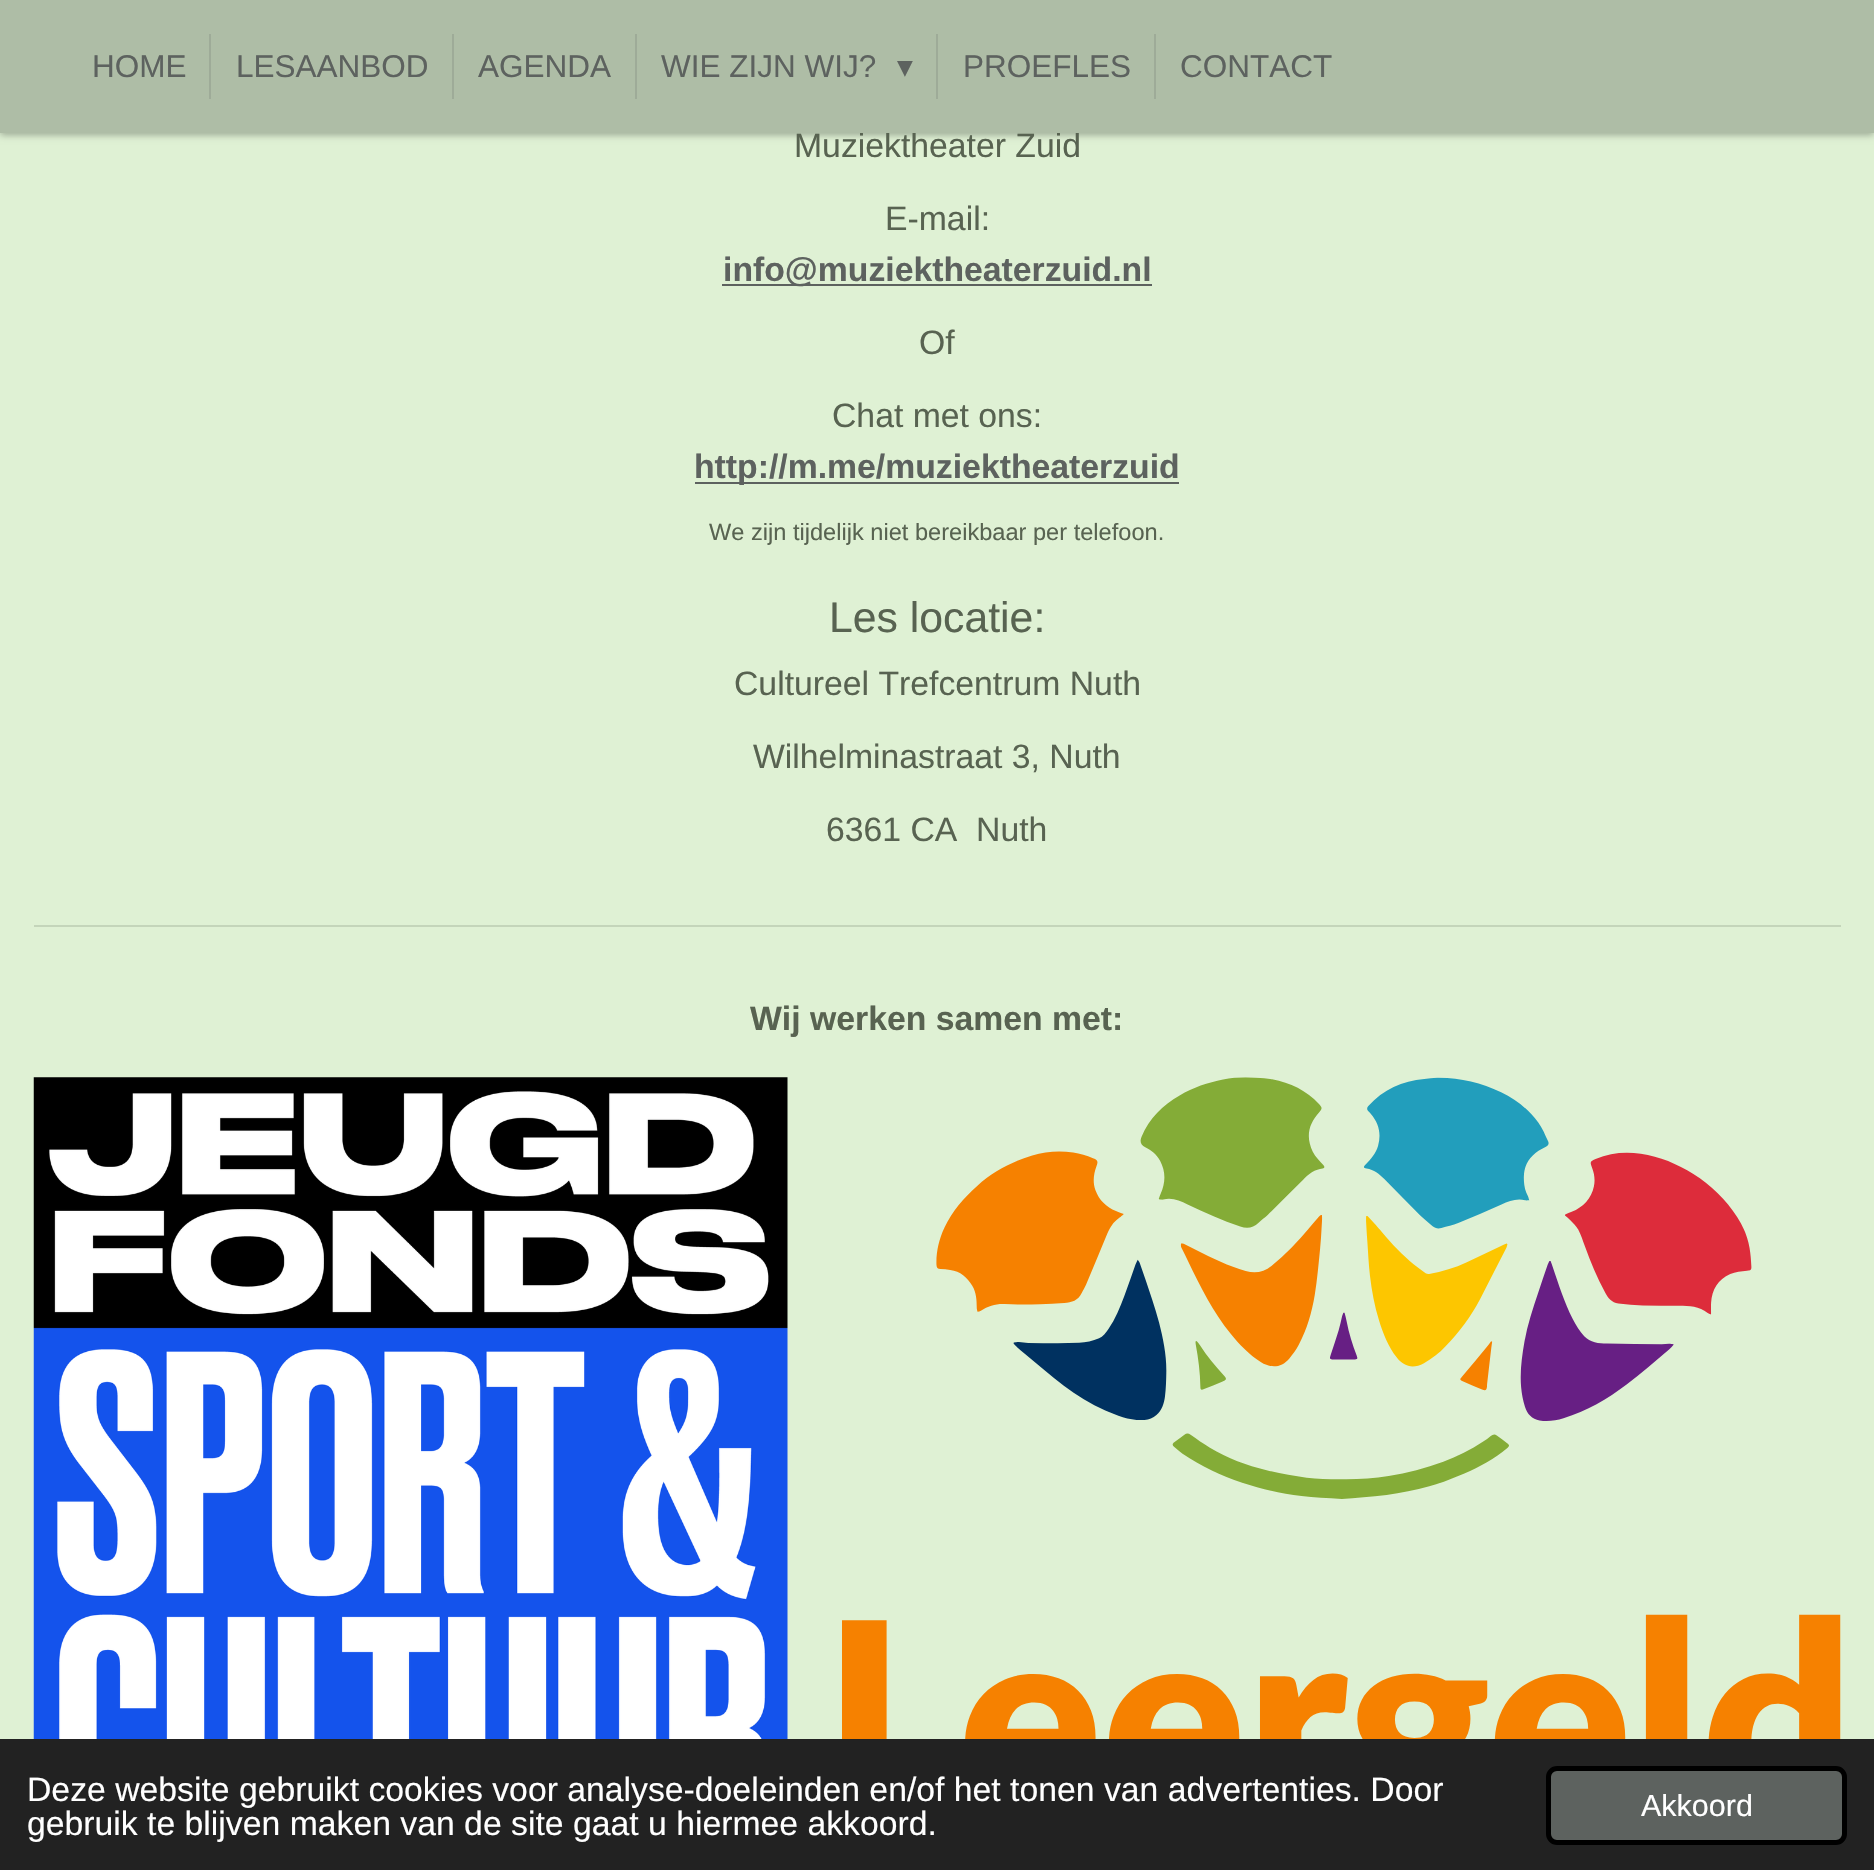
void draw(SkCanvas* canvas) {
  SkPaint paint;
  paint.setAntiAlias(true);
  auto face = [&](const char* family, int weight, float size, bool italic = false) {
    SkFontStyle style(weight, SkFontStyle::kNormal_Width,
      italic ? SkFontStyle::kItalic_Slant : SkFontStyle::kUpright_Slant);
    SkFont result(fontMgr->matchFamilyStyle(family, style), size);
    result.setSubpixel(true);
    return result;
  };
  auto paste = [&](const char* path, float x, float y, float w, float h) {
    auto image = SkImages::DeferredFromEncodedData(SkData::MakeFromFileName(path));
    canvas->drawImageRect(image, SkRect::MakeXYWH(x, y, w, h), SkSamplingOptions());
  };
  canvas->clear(0xffdff1d4);
  paint.setColor(0x4d000000);
  paint.setMaskFilter(SkMaskFilter::MakeBlur(kNormal_SkBlurStyle, 3.5f));
  canvas->drawRect(SkRect::MakeXYWH(0, -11, 1874, 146), paint);
  paint.setMaskFilter(nullptr);
  {
    const struct { float x, y, w, h; SkColor color; } items[] = {
      {722, 284, 430, 2, 0xff5d625f},
      {695, 482, 484, 2, 0xff5d625f},
      {34, 925, 1807, 2, 0xffc4d5ba},
    };
    for (auto [x, y, w, h, color] : items) {
      paint.setColor(color);
      canvas->drawRect(SkRect::MakeXYWH(x, y, w, h), paint);
    }
  }
  paste("img/1.png", 33, 1077, 755, 662);
  paste("img/2.png", 842, 1077, 999, 662);
  paint.setColor(0xff222222);
  canvas->drawRect(SkRect::MakeXYWH(0, 1739, 1874, 131), paint);
  paint.setColor(0xff5d625f);
  canvas->drawRoundRect(SkRect::MakeXYWH(1548.5f, 1768.5f, 296, 74), 8.5f, 8.5f, paint);
  paint.setStroke(true);
  paint.setStrokeWidth(5);
  paint.setColor(0xff000000);
  canvas->drawRoundRect(SkRect::MakeXYWH(1548.5f, 1768.5f, 296, 74), 8.5f, 8.5f, paint);
  auto f0 = face("Liberation Sans", 400, 33.75f);
  paint.setStroke(false);
  paint.setColor(0xff586351);
  canvas->drawString("Muziektheater Zuid", 794, 157, f0, paint);
  paint.setColor(0xffaebda6);
  canvas->drawRect(SkRect::MakeXYWH(0, 0, 1874, 133), paint);
  auto f1 = face("Liberation Sans", 400, 31.5f);
  paint.setColor(0xff5d625f);
  canvas->drawString("CONTACT", 1180, 77, f1, paint);
  canvas->drawString("PROEFLES", 963, 77, f1, paint);
  paint.setColor(0xff9eab98);
  canvas->drawRect(SkRect::MakeXYWH(1154, 34, 2, 65), paint);
  auto f2 = face("DejaVu Sans", 400, 31.5f);
  paint.setColor(0xff5d625f);
  canvas->drawString("▾", 897, 77, f2, paint);
  canvas->drawString("WIE ZIJN WIJ?", 661, 77, f1, paint);
  paint.setColor(0xff9eab98);
  canvas->drawRect(SkRect::MakeXYWH(936, 34, 2, 65), paint);
  paint.setColor(0xff5d625f);
  canvas->drawString("AGENDA", 478, 77, f1, paint);
  paint.setColor(0xff9eab98);
  canvas->drawRect(SkRect::MakeXYWH(635, 34, 2, 65), paint);
  paint.setColor(0xff5d625f);
  canvas->drawString("LESAANBOD", 236, 77, f1, paint);
  paint.setColor(0xff9eab98);
  canvas->drawRect(SkRect::MakeXYWH(452, 34, 2, 65), paint);
  paint.setColor(0xff5d625f);
  canvas->drawString("HOME", 92, 77, f1, paint);
  paint.setColor(0xff9eab98);
  canvas->drawRect(SkRect::MakeXYWH(209, 34, 2, 65), paint);
  paint.setColor(0xff586351);
  canvas->drawString("E-mail:", 885, 230, f0, paint);
  auto f3 = face("Liberation Sans", 700, 33.75f);
  paint.setColor(0xff5d625f);
  canvas->drawString("info@muziektheaterzuid.nl", 723, 281, f3, paint);
  paint.setColor(0xff586351);
  canvas->drawString("Of", 919, 354, f0, paint);
  canvas->drawString("Chat met ons:", 832, 427, f0, paint);
  paint.setColor(0xff5d625f);
  canvas->drawString("http://m.me/muziektheaterzuid", 694, 478, f3, paint);
  auto f4 = face("Liberation Sans", 400, 23.6f);
  paint.setColor(0xff586351);
  canvas->drawString("We zijn tijdelijk niet bereikbaar per telefoon.", 709, 540, f4, paint);
  auto f5 = face("Liberation Sans", 400, 42.75f);
  canvas->drawString("Les locatie:", 829, 632, f5, paint);
  {
    const struct { const char* s; float x, y; } items[] = {
      {"Cultureel Trefcentrum Nuth", 734, 695},
      {"Wilhelminastraat 3, Nuth", 753, 768},
      {"6361 CA  Nuth", 826, 841},
    };
    for (auto [s, x, y] : items) {
      canvas->drawString(s, x, y, f0, paint);
    }
  }
  canvas->drawString("Wij werken samen met:", 750, 1030, f3, paint);
  paint.setColor(0xffffffff);
  canvas->drawString("Deze website gebruikt cookies voor analyse-doeleinden en/of het tonen van advertenties. Door", 27, 1801, f0, paint);
  canvas->drawString("gebruik te blijven maken van de site gaat u hiermee akkoord.", 27, 1835, f0, paint);
  auto f6 = face("Liberation Sans", 400, 30.5f);
  canvas->drawString("Akkoord", 1641, 1816, f6, paint);
}
